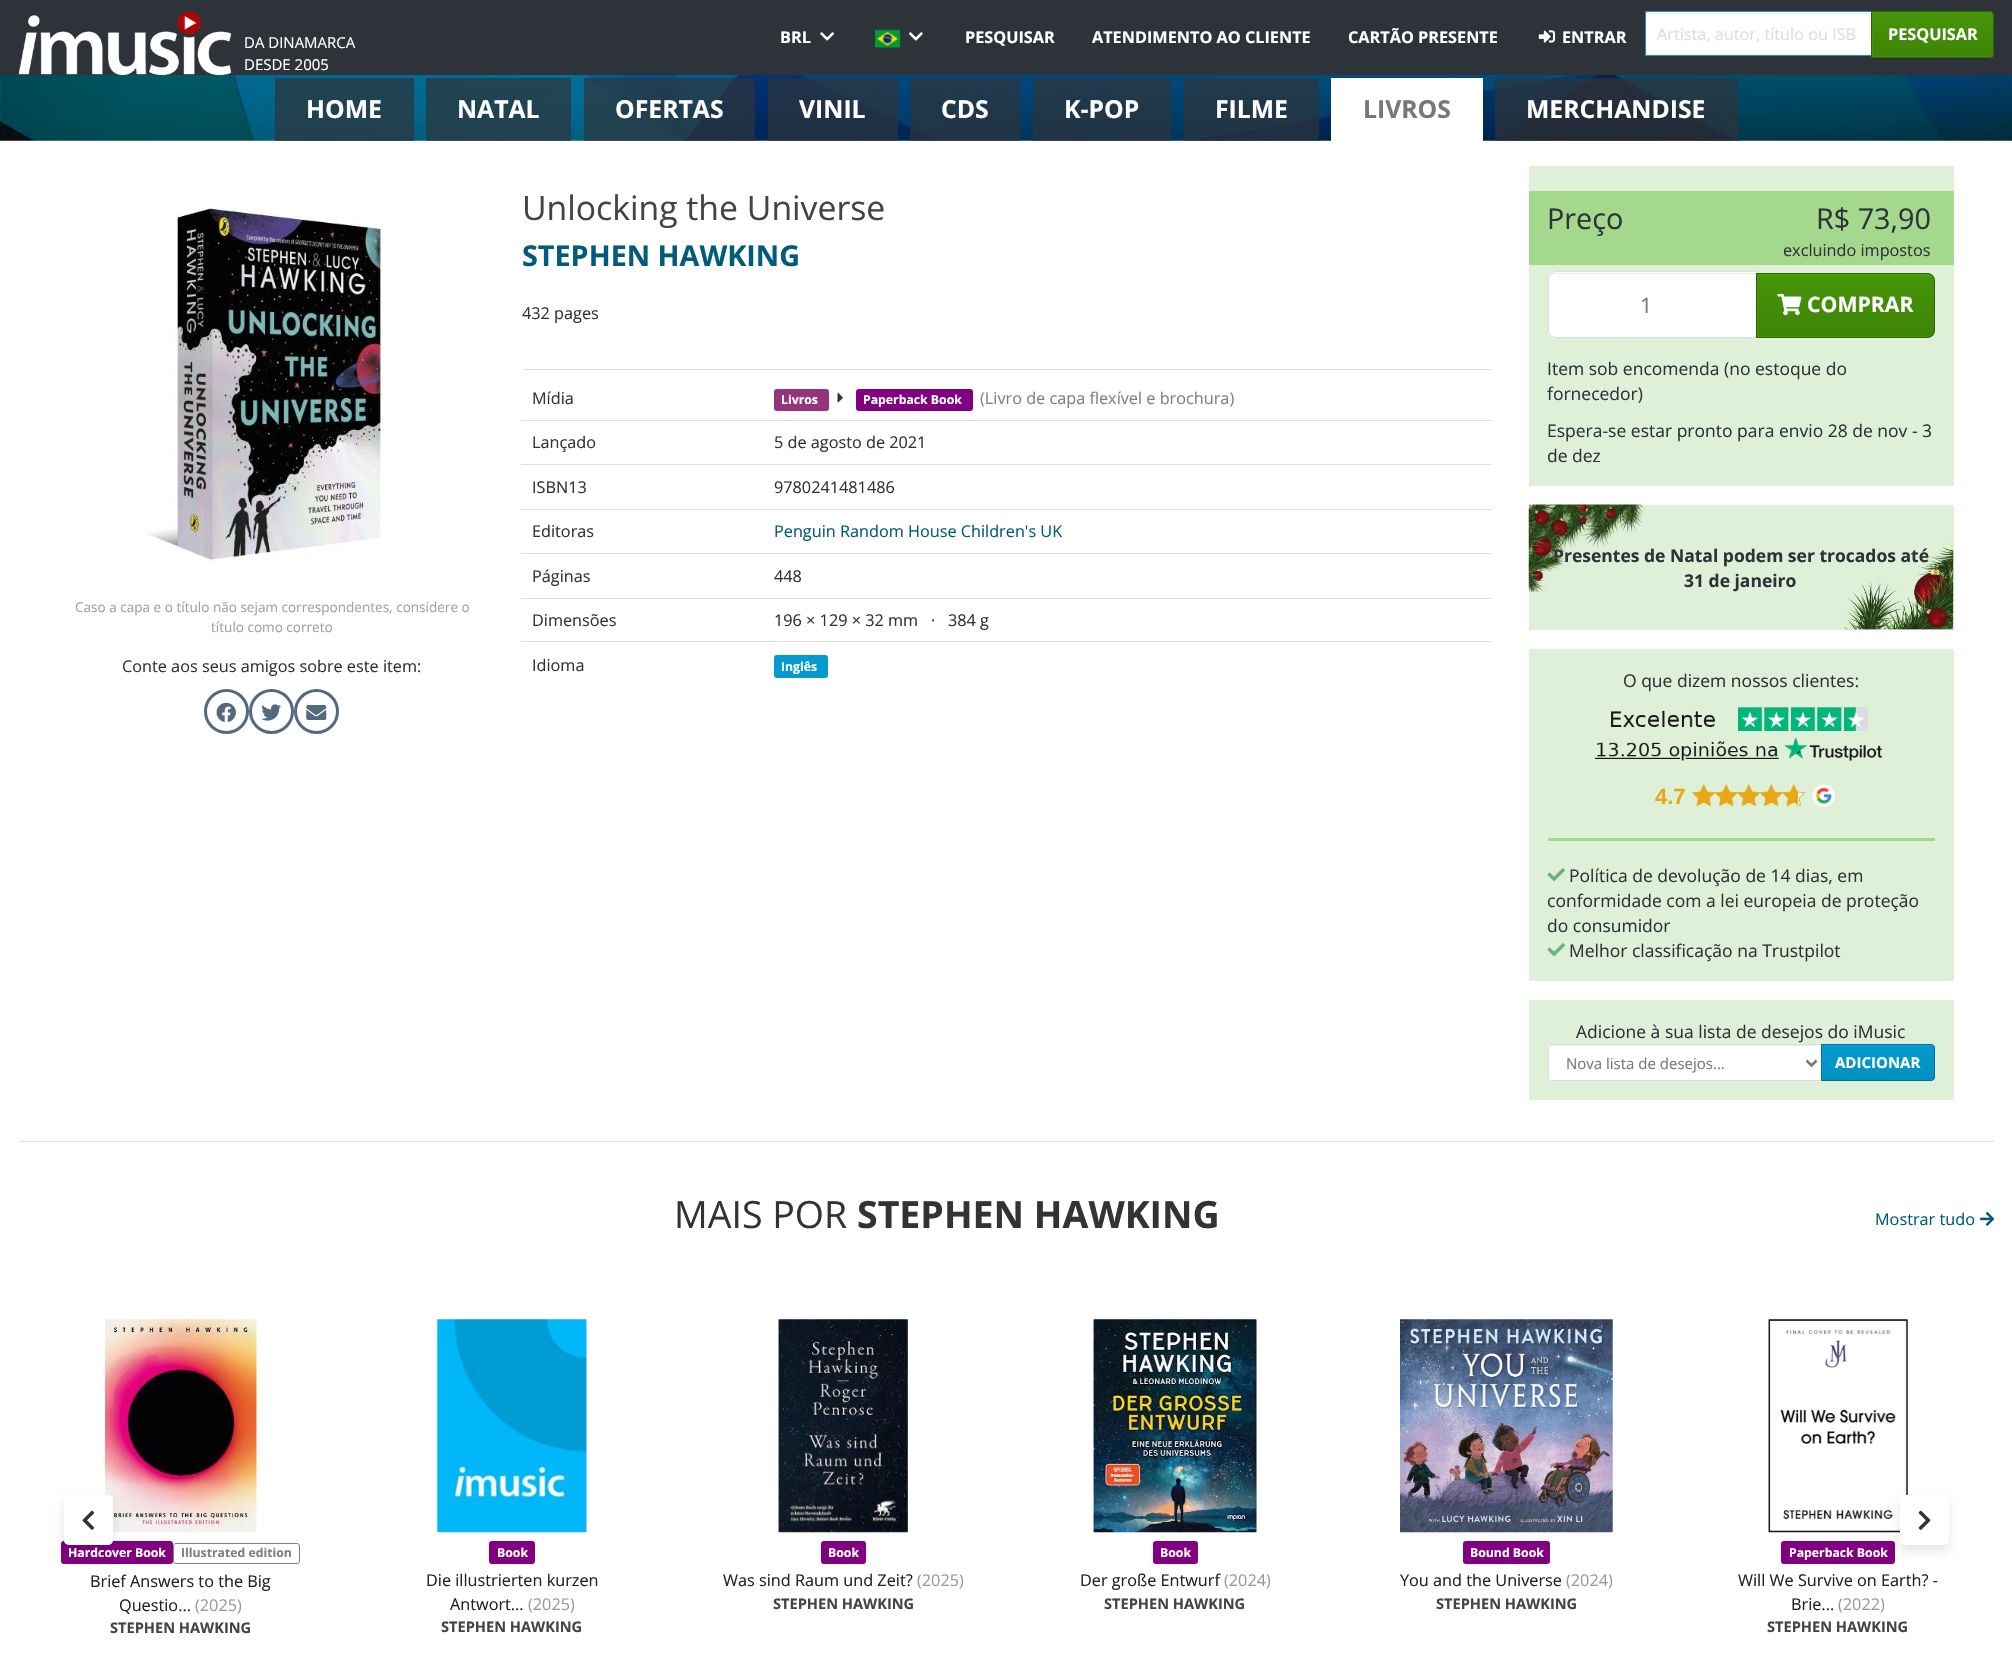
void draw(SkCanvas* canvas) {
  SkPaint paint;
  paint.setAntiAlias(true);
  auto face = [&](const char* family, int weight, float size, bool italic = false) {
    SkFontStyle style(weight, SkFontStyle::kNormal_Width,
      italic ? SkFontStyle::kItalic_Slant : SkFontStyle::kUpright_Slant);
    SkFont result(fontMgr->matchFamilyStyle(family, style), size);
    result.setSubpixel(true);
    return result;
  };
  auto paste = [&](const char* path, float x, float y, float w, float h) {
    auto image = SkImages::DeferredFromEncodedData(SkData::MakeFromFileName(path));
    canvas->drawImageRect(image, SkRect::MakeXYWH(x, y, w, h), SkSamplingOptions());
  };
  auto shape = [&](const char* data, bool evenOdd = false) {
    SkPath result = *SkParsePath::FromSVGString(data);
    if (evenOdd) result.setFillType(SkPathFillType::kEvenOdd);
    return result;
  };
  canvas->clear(0xffffffff);
  paint.setColor(0xff2d3339);
  canvas->drawRect(SkRect::MakeXYWH(0, 0, 2012, 75), paint);
  paste("img/1.png", 18, 11, 214, 64);
  paste("img/2.png", 820, 32, 14, 9);
  paste("img/3.png", 875, 29, 26, 19);
  paste("img/4.png", 909, 32, 14, 9);
  paste("img/5.png", 1538, 30, 17, 13);
  paint.setColor(0xffffffff);
  canvas->drawPath(shape("M1650 11H1873V56H1650C1647 56 1645 54 1645 51V16C1645 13 1647 11 1650 11Z"), paint);
  paint.setColor(0xffececec);
  canvas->drawRect(SkRect::MakeXYWH(1646, 13, 225, 1), paint);
  paint.setStroke(true);
  paint.setStrokeWidth(1);
  paint.setColor(0xff1993b6);
  canvas->drawRect(SkRect::MakeXYWH(1645.5f, 11.5f, 227, 44), paint);
  paint.setStroke(false);
  paint.setColor(0xff469408);
  canvas->drawPath(shape("M1871 11H1989C1992 11 1994 13 1994 16V53C1994 56 1992 58 1989 58H1871Z"), paint);
  {
    const SkColor colors[] = {0xff4da309, 0xff469408, 0xff3f8507};
    const float stops[] = {0, 0.06f, 1};
    const SkPoint ends[] = {{1933, 12}, {1933, 56}};
    paint.setShader(SkGradientShader::MakeLinear(ends, colors, stops, 3, SkTileMode::kClamp));
    paint.setAlpha(255);
  }
  canvas->drawRect(SkRect::MakeXYWH(1873, 13, 120, 43), paint);
  paint.setStroke(true);
  paint.setShader(nullptr);
  paint.setColor(0xff2f6405);
  canvas->drawPath(shape("M1871.5 11.5H1989C1991.5 11.5 1993.5 13.5 1993.5 16V53C1993.5 55.5 1991.5 57.5 1989 57.5H1871.5Z"), paint);
  paste("img/6.png", 0, 75, 2012, 66);
  paint.setStroke(false);
  {
    const struct { float x, y, w, h; SkColor color; } items[] = {
      {275, 78, 139, 63, 0xb32d3339},
      {426, 78, 145, 63, 0xb32d3339},
      {584, 78, 171, 63, 0xb32d3339},
      {768, 78, 130, 63, 0xb32d3339},
      {910, 78, 110, 63, 0xb32d3339},
      {1033, 78, 138, 63, 0xb32d3339},
      {1184, 78, 135, 63, 0xb32d3339},
      {1331, 78, 152, 63, 0xffffffff},
      {1495, 78, 243, 63, 0xb32d3339},
    };
    for (auto [x, y, w, h, color] : items) {
      paint.setColor(color);
      canvas->drawRect(SkRect::MakeXYWH(x, y, w, h), paint);
    }
  }
  paste("img/7.png", 147, 208, 237, 354);
  paint.setStroke(true);
  paint.setStrokeWidth(3);
  paint.setColor(0xff54697e);
  canvas->drawCircle(226.5f, 711.5f, 21, paint);
  paste("img/8.png", 216, 702, 20, 20);
  canvas->drawCircle(271.5f, 711.5f, 21, paint);
  paste("img/9.png", 261, 704, 21, 17);
  canvas->drawCircle(316.5f, 711.5f, 21, paint);
  paste("img/10.png", 306, 705, 21, 15);
  paint.setStroke(false);
  paint.setColor(0xffdddddd);
  canvas->drawRect(SkRect::MakeXYWH(523, 369, 968, 1), paint);
  paint.setColor(0xff953579);
  canvas->drawRoundRect(SkRect::MakeXYWH(774, 389, 55, 22), 3, 3, paint);
  paste("img/11.png", 837, 393, 6, 10);
  paint.setColor(0xff800080);
  canvas->drawRoundRect(SkRect::MakeXYWH(856, 389, 117, 22), 3, 3, paint);
  {
    const struct { float x, y, w, h; SkColor color; } items[] = {
      {521, 420, 970, 1, 0xffdddddd},
      {521, 464, 970, 1, 0xffdddddd},
      {521, 509, 970, 1, 0xffdddddd},
      {521, 553, 970, 1, 0xffdddddd},
      {521, 598, 970, 1, 0xffdddddd},
      {521, 641, 970, 1, 0xffdddddd},
    };
    for (auto [x, y, w, h, color] : items) {
      paint.setColor(color);
      canvas->drawRect(SkRect::MakeXYWH(x, y, w, h), paint);
    }
  }
  paint.setColor(0xff029acf);
  canvas->drawRoundRect(SkRect::MakeXYWH(774, 655, 54, 23), 3, 3, paint);
  paint.setColor(0xffdff0d8);
  canvas->drawRect(SkRect::MakeXYWH(1529, 166, 425, 320), paint);
  paint.setColor(0xffa3d88d);
  canvas->drawRect(SkRect::MakeXYWH(1529, 191, 425, 74), paint);
  paint.setColor(0xffffffff);
  canvas->drawPath(shape("M1556 271H1758V338H1556C1551.5 338 1548 334.5 1548 330V279C1548 274.5 1551.5 271 1556 271Z"), paint);
  paint.setColor(0xffececec);
  canvas->drawPath(shape("M1555 274H1756V273H1555C1552 273 1549 276 1549 279V280C1549 277 1552 274 1555 274Z"), paint);
  paint.setStroke(true);
  paint.setStrokeWidth(1);
  paint.setColor(0xffdddddd);
  canvas->drawPath(shape("M1556 271.5H1757.5V337.5H1556C1552 337.5 1548.5 334 1548.5 330V279C1548.5 275 1552 271.5 1556 271.5Z"), paint);
  paint.setStroke(false);
  paint.setColor(0xff469408);
  canvas->drawPath(shape("M1756 273H1927C1931.5 273 1935 276.5 1935 281V330C1935 334.5 1931.5 338 1927 338H1756Z"), paint);
  canvas->save();
  canvas->clipPath(shape("M1756 273H1927C1931.5 273 1935 276.5 1935 281V330C1935 334.5 1931.5 338 1927 338H1756Z"), true);
  {
    const SkColor colors[] = {0xff4da309, 0xff469408, 0xff3f8507};
    const float stops[] = {0, 0.06f, 1};
    const SkPoint ends[] = {{1846, 274}, {1846, 336}};
    paint.setShader(SkGradientShader::MakeLinear(ends, colors, stops, 3, SkTileMode::kClamp));
    paint.setAlpha(255);
  }
  canvas->drawRect(SkRect::MakeXYWH(1758, 274, 176, 62), paint);
  canvas->restore();
  paint.setStroke(true);
  paint.setShader(nullptr);
  paint.setColor(0xff2f6405);
  canvas->drawPath(shape("M1756.5 273.5H1927C1931 273.5 1934.5 277 1934.5 281V330C1934.5 334 1931 337.5 1927 337.5H1756.5Z"), paint);
  paste("img/12.png", 1777, 293, 25, 23);
  paint.setStroke(false);
  paint.setColor(0xffdff0d8);
  canvas->drawRect(SkRect::MakeXYWH(1529, 505, 425, 125), paint);
  canvas->drawRect(SkRect::MakeXYWH(1529, 649, 425, 332), paint);
  paste("img/15.png", 1595, 707, 287, 54);
  paste("img/16.png", 1692, 784, 114, 23);
  paste("img/17.png", 1812, 784, 23, 23);
  paint.setColor(0xffa3d88d);
  canvas->drawRect(SkRect::MakeXYWH(1548, 838, 387, 3), paint);
  paste("img/18.png", 1547, 868, 18, 14);
  paste("img/18.png", 1547, 943, 18, 14);
  paint.setColor(0xffdff0d8);
  canvas->drawRect(SkRect::MakeXYWH(1529, 1000, 425, 100), paint);
  paint.setColor(0xffffffff);
  canvas->drawPath(shape("M1552 1044H1823V1081H1552C1550 1081 1548 1079 1548 1077V1048C1548 1046 1550 1044 1552 1044Z"), paint);
  paint.setColor(0xffececec);
  canvas->drawPath(shape("M1551 1046H1821V1045H1552C1549 1045 1549 1047 1549 1049C1549 1047 1550 1046 1551 1046Z"), paint);
  paint.setStroke(true);
  paint.setColor(0xffdddddd);
  canvas->drawPath(shape("M1552 1044.5H1822.5V1080.5H1552C1550 1080.5 1548.5 1079 1548.5 1077V1048C1548.5 1046 1550 1044.5 1552 1044.5Z"), paint);
  paint.setStrokeWidth(2.5f);
  paint.setColor(0xff777777);
  canvas->drawPath(shape("M1806.5 1060.5L1811.5 1065.5L1816.5 1060.5"), paint);
  paint.setStroke(false);
  paint.setColor(0xff029acf);
  canvas->drawPath(shape("M1821 1044H1931C1933 1044 1935 1046 1935 1048V1077C1935 1079 1933 1081 1931 1081H1821Z"), paint);
  {
    const SkColor colors[] = {0xff02a5de, 0xff029acf, 0xff028fc0};
    const float stops[] = {0, 0.06f, 1};
    const SkPoint ends[] = {{1878, 1045}, {1878, 1080}};
    paint.setShader(SkGradientShader::MakeLinear(ends, colors, stops, 3, SkTileMode::kClamp));
    paint.setAlpha(255);
  }
  canvas->drawRect(SkRect::MakeXYWH(1823, 1045, 111, 35), paint);
  paint.setStroke(true);
  paint.setStrokeWidth(1);
  paint.setShader(nullptr);
  paint.setColor(0xff02749c);
  canvas->drawPath(shape("M1821.5 1044.5H1931C1933 1044.5 1934.5 1046 1934.5 1048V1077C1934.5 1079 1933 1080.5 1931 1080.5H1821.5Z"), paint);
  paint.setStroke(false);
  paint.setColor(0xffdddddd);
  canvas->drawRect(SkRect::MakeXYWH(19, 1141, 1975, 1), paint);
  paste("img/19.png", 1980, 1212, 15, 14);
  paste("img/22.png", 105, 1319, 152, 214);
  paste("img/23.png", 105, 1319, 152, 213);
  paint.setColor(0xff800080);
  canvas->drawRoundRect(SkRect::MakeXYWH(61, 1541, 112, 23), 3, 3, paint);
  paint.setColor(0x1a000000);
  paint.setMaskFilter(SkMaskFilter::MakeBlur(kNormal_SkBlurStyle, 5.5f));
  canvas->drawRoundRect(SkRect::MakeXYWH(64, 1501, 49, 50), 5, 5, paint);
  paint.setMaskFilter(nullptr);
  paint.setColor(0xffffffff);
  canvas->drawRoundRect(SkRect::MakeXYWH(64, 1495, 49, 50), 5, 5, paint);
  paint.setStroke(true);
  paint.setStrokeWidth(3);
  paint.setColor(0x80ffffff);
  canvas->drawRoundRect(SkRect::MakeXYWH(65.5f, 1496.5f, 46, 47), 3.5f, 3.5f, paint);
  paste("img/20.png", 82, 1510, 13, 20);
  paste("img/32.png", 1768, 1319, 140, 214);
  paste("img/33.png", 1768, 1319, 140, 213);
  paint.setStroke(false);
  paint.setColor(0xff800080);
  canvas->drawRoundRect(SkRect::MakeXYWH(1781, 1541, 114, 23), 3, 3, paint);
  paint.setColor(0x1a000000);
  paint.setMaskFilter(SkMaskFilter::MakeBlur(kNormal_SkBlurStyle, 5.5f));
  canvas->drawRoundRect(SkRect::MakeXYWH(1900, 1501, 49, 50), 5, 5, paint);
  paint.setMaskFilter(nullptr);
  paint.setColor(0xffffffff);
  canvas->drawRoundRect(SkRect::MakeXYWH(1900, 1495, 49, 50), 5, 5, paint);
  paste("img/21.png", 1918, 1510, 13, 20);
  paint.setStroke(true);
  paint.setStrokeWidth(1);
  paint.setColor(0xff808080);
  canvas->drawRoundRect(SkRect::MakeXYWH(173.5f, 1543.5f, 126, 20), 2.5f, 2.5f, paint);
  paste("img/24.png", 437, 1319, 150, 214);
  paste("img/25.png", 437, 1319, 150, 213);
  paint.setStroke(false);
  paint.setColor(0xff800080);
  canvas->drawRoundRect(SkRect::MakeXYWH(489, 1541, 46, 23), 3, 3, paint);
  paste("img/26.png", 778, 1319, 130, 214);
  paste("img/27.png", 778, 1319, 130, 213);
  canvas->drawRoundRect(SkRect::MakeXYWH(821, 1541, 45, 23), 3, 3, paint);
  paste("img/28.png", 1093, 1319, 164, 214);
  paste("img/29.png", 1093, 1319, 164, 213);
  canvas->drawRoundRect(SkRect::MakeXYWH(1153, 1541, 45, 23), 3, 3, paint);
  paste("img/30.png", 1400, 1319, 213, 214);
  paste("img/31.png", 1400, 1319, 213, 213);
  canvas->drawRoundRect(SkRect::MakeXYWH(1463, 1541, 87, 23), 3, 3, paint);
  auto f0 = face("Open Sans", 400, 15);
  paint.setColor(0xffffffff);
  canvas->drawString("DA DINAMARCA", 244, 48, f0, paint);
  canvas->drawString("DESDE 2005", 244, 70, f0, paint);
  auto f1 = face("Open Sans", 700, 16.25f);
  {
    const struct { const char* s; float x, y; } items[] = {
      {"BRL", 780, 43},
      {"PESQUISAR", 965, 43},
      {"ATENDIMENTO AO CLIENTE", 1092, 43},
      {"CARTÃO PRESENTE", 1348, 43},
      {"ENTRAR", 1562, 43},
    };
    for (auto [s, x, y] : items) {
      canvas->drawString(s, x, y, f1, paint);
    }
  }
  auto f2 = face("Open Sans", 400, 16.25f);
  paint.setColor(0xffdddddd);
  canvas->drawString("Artista, autor, título ou ISB", 1657, 40, f2, paint);
  paint.setColor(0xffffffff);
  canvas->drawString("PESQUISAR", 1888, 40, f1, paint);
  auto f3 = face("Open Sans", 700, 24.75f);
  {
    const struct { const char* s; float x, y; } items[] = {
      {"HOME", 306, 118},
      {"NATAL", 457, 118},
      {"OFERTAS", 615, 118},
      {"VINIL", 799, 118},
      {"CDS", 941, 118},
      {"K-POP", 1064, 118},
      {"FILME", 1215, 118},
    };
    for (auto [s, x, y] : items) {
      canvas->drawString(s, x, y, f3, paint);
    }
  }
  paint.setColor(0xff777777);
  canvas->drawString("LIVROS", 1363, 118, f3, paint);
  paint.setColor(0xffffffff);
  canvas->drawString("MERCHANDISE", 1526, 118, f3, paint);
  auto f4 = face("Open Sans", 400, 13.55f);
  paint.setColor(0xffa2a2a2);
  canvas->drawString("Caso a capa e o título não sejam correspondentes, considere o", 75, 612, f4, paint);
  canvas->drawString("título como correto", 211, 632, f4, paint);
  paint.setColor(0xff333333);
  canvas->drawString("Conte aos seus amigos sobre este item:", 122, 672, f2, paint);
  auto f5 = face("Open Sans", 400, 33.75f);
  paint.setColor(0xff444444);
  canvas->drawString("Unlocking the Universe", 522, 220, f5, paint);
  auto f6 = face("Open Sans", 700, 28.75f);
  paint.setColor(0xff015b7b);
  canvas->drawString("STEPHEN HAWKING", 522, 266, f6, paint);
  paint.setColor(0xff333333);
  canvas->drawString("432 pages", 522, 319, f2, paint);
  canvas->drawString("Mídia", 532, 404, f2, paint);
  auto f7 = face("Open Sans", 700, 12.25f);
  paint.setColor(0xffffffff);
  canvas->drawString("Livros", 781, 404, f7, paint);
  canvas->drawString("Paperback Book", 863, 404, f7, paint);
  paint.setColor(0xff808080);
  canvas->drawString("(Livro de capa flexível e brochura)", 980, 404, f2, paint);
  paint.setColor(0xff333333);
  {
    const struct { const char* s; float x, y; } items[] = {
      {"Lançado", 532, 448},
      {"5 de agosto de 2021", 774, 448},
      {"ISBN13", 532, 493},
      {"9780241481486", 774, 493},
      {"Editoras", 532, 537},
    };
    for (auto [s, x, y] : items) {
      canvas->drawString(s, x, y, f2, paint);
    }
  }
  paint.setColor(0xff015b7b);
  canvas->drawString("Penguin Random House Children's UK", 774, 537, f2, paint);
  paint.setColor(0xff333333);
  {
    const struct { const char* s; float x, y; } items[] = {
      {"Páginas", 532, 582},
      {"448", 774, 582},
      {"Dimensões", 532, 626},
      {"196 × 129 × 32 mm", 774, 626},
      {"·", 931, 626},
      {"384 g", 948, 626},
      {"Idioma", 532, 671},
    };
    for (auto [s, x, y] : items) {
      canvas->drawString(s, x, y, f2, paint);
    }
  }
  paint.setColor(0xffffffff);
  canvas->drawString("Inglês", 781, 671, f7, paint);
  auto f8 = face("Open Sans", 400, 28.75f);
  paint.setColor(0xff2d3339);
  canvas->drawString("Preço", 1547, 229, f8, paint);
  canvas->drawString("R$ 73,90", 1816, 229, f8, paint);
  canvas->drawString("excluindo impostos", 1783, 256, f2, paint);
  auto f9 = face("Open Sans", 400, 21.25f);
  paint.setColor(0xff777777);
  canvas->drawString("1", 1640, 313, f9, paint);
  auto f10 = face("Open Sans", 700, 21.25f);
  paint.setColor(0xffffffff);
  canvas->drawString("COMPRAR", 1807, 312, f10, paint);
  auto f11 = face("Open Sans", 400, 17.5f);
  paint.setColor(0xff2d3339);
  {
    const struct { const char* s; float x, y; } items[] = {
      {"Item sob encomenda (no estoque do", 1547, 375},
      {"fornecedor)", 1547, 400},
      {"Espera-se estar pronto para envio 28 de nov - 3", 1547, 437},
      {"de dez", 1547, 462},
    };
    for (auto [s, x, y] : items) {
      canvas->drawString(s, x, y, f11, paint);
    }
  }
  auto f12 = face("Open Sans", 700, 17.5f);
  canvas->drawString("Presentes de Natal podem ser trocados até", 1553, 562, f12, paint);
  paste("img/14.png", 1843, 543, 111, 87);
  paste("img/13.png", 1528, 504, 117, 88);
  canvas->drawString("31 de janeiro", 1684, 587, f12, paint);
  canvas->drawString("O que dizem nossos clientes:", 1623, 687, f11, paint);
  auto f13 = face("Liberation Sans", 700, 22);
  paint.setColor(0xffe6a817);
  canvas->drawString("4.7", 1655, 804, f13, paint);
  paint.setColor(0xff2d3339);
  {
    const struct { const char* s; float x, y; } items[] = {
      {"Política de devolução de 14 dias, em", 1569, 882},
      {"conformidade com a lei europeia de proteção", 1547, 907},
      {"do consumidor", 1547, 932},
      {"Melhor classificação na Trustpilot", 1569, 957},
      {"Adicione à sua lista de desejos do iMusic", 1576, 1038},
    };
    for (auto [s, x, y] : items) {
      canvas->drawString(s, x, y, f11, paint);
    }
  }
  paint.setColor(0xff777777);
  canvas->drawString("Nova lista de desejos...", 1566, 1069, f0, paint);
  auto f14 = face("Open Sans", 700, 15);
  paint.setColor(0xffffffff);
  canvas->drawString("ADICIONAR", 1835, 1068, f14, paint);
  auto f15 = face("Open Sans", 400, 37.5f);
  paint.setColor(0xff333333);
  canvas->drawString("MAIS POR", 674, 1228, f15, paint);
  auto f16 = face("Open Sans", 700, 37.5f);
  canvas->drawString("STEPHEN HAWKING", 857, 1228, f16, paint);
  paint.setColor(0xff015b7b);
  canvas->drawString("Mostrar tudo", 1875, 1225, f2, paint);
  paint.setColor(0xffffffff);
  canvas->drawString("Hardcover Book", 68, 1557, f7, paint);
  paint.setColor(0xff808080);
  canvas->drawString("Illustrated edition", 181, 1557, f7, paint);
  paint.setColor(0xff222222);
  canvas->drawString("Brief Answers to the Big", 90, 1587, f2, paint);
  canvas->drawString("Questio...", 119, 1611, f2, paint);
  paint.setColor(0xff999999);
  canvas->drawString("(2025)", 195, 1611, f2, paint);
  auto f17 = face("Open Sans", 700, 14.6f);
  paint.setColor(0xff444444);
  canvas->drawString("STEPHEN HAWKING", 110, 1633, f17, paint);
  paint.setColor(0xffffffff);
  canvas->drawString("Book", 497, 1557, f7, paint);
  paint.setColor(0xff222222);
  canvas->drawString("Die illustrierten kurzen", 426, 1586, f2, paint);
  canvas->drawString("Antwort...", 450, 1610, f2, paint);
  paint.setColor(0xff999999);
  canvas->drawString("(2025)", 528, 1610, f2, paint);
  paint.setColor(0xff444444);
  canvas->drawString("STEPHEN HAWKING", 441, 1632, f17, paint);
  paint.setColor(0xffffffff);
  canvas->drawString("Book", 828, 1557, f7, paint);
  paint.setColor(0xff222222);
  canvas->drawString("Was sind Raum und Zeit?", 723, 1586, f2, paint);
  paint.setColor(0xff999999);
  canvas->drawString("(2025)", 917, 1586, f2, paint);
  paint.setColor(0xff444444);
  canvas->drawString("STEPHEN HAWKING", 773, 1609, f17, paint);
  paint.setColor(0xffffffff);
  canvas->drawString("Book", 1160, 1557, f7, paint);
  paint.setColor(0xff222222);
  canvas->drawString("Der große Entwurf", 1080, 1586, f2, paint);
  paint.setColor(0xff999999);
  canvas->drawString("(2024)", 1224, 1586, f2, paint);
  paint.setColor(0xff444444);
  canvas->drawString("STEPHEN HAWKING", 1104, 1609, f17, paint);
  paint.setColor(0xffffffff);
  canvas->drawString("Bound Book", 1470, 1557, f7, paint);
  paint.setColor(0xff222222);
  canvas->drawString("You and the Universe", 1400, 1586, f2, paint);
  paint.setColor(0xff999999);
  canvas->drawString("(2024)", 1566, 1586, f2, paint);
  paint.setColor(0xff444444);
  canvas->drawString("STEPHEN HAWKING", 1436, 1609, f17, paint);
  paint.setColor(0xffffffff);
  canvas->drawString("Paperback Book", 1789, 1557, f7, paint);
  paint.setColor(0xff222222);
  canvas->drawString("Will We Survive on Earth? -", 1738, 1586, f2, paint);
  canvas->drawString("Brie...", 1791, 1610, f2, paint);
  paint.setColor(0xff999999);
  canvas->drawString("(2022)", 1838, 1610, f2, paint);
  paint.setColor(0xff444444);
  canvas->drawString("STEPHEN HAWKING", 1767, 1632, f17, paint);
}
